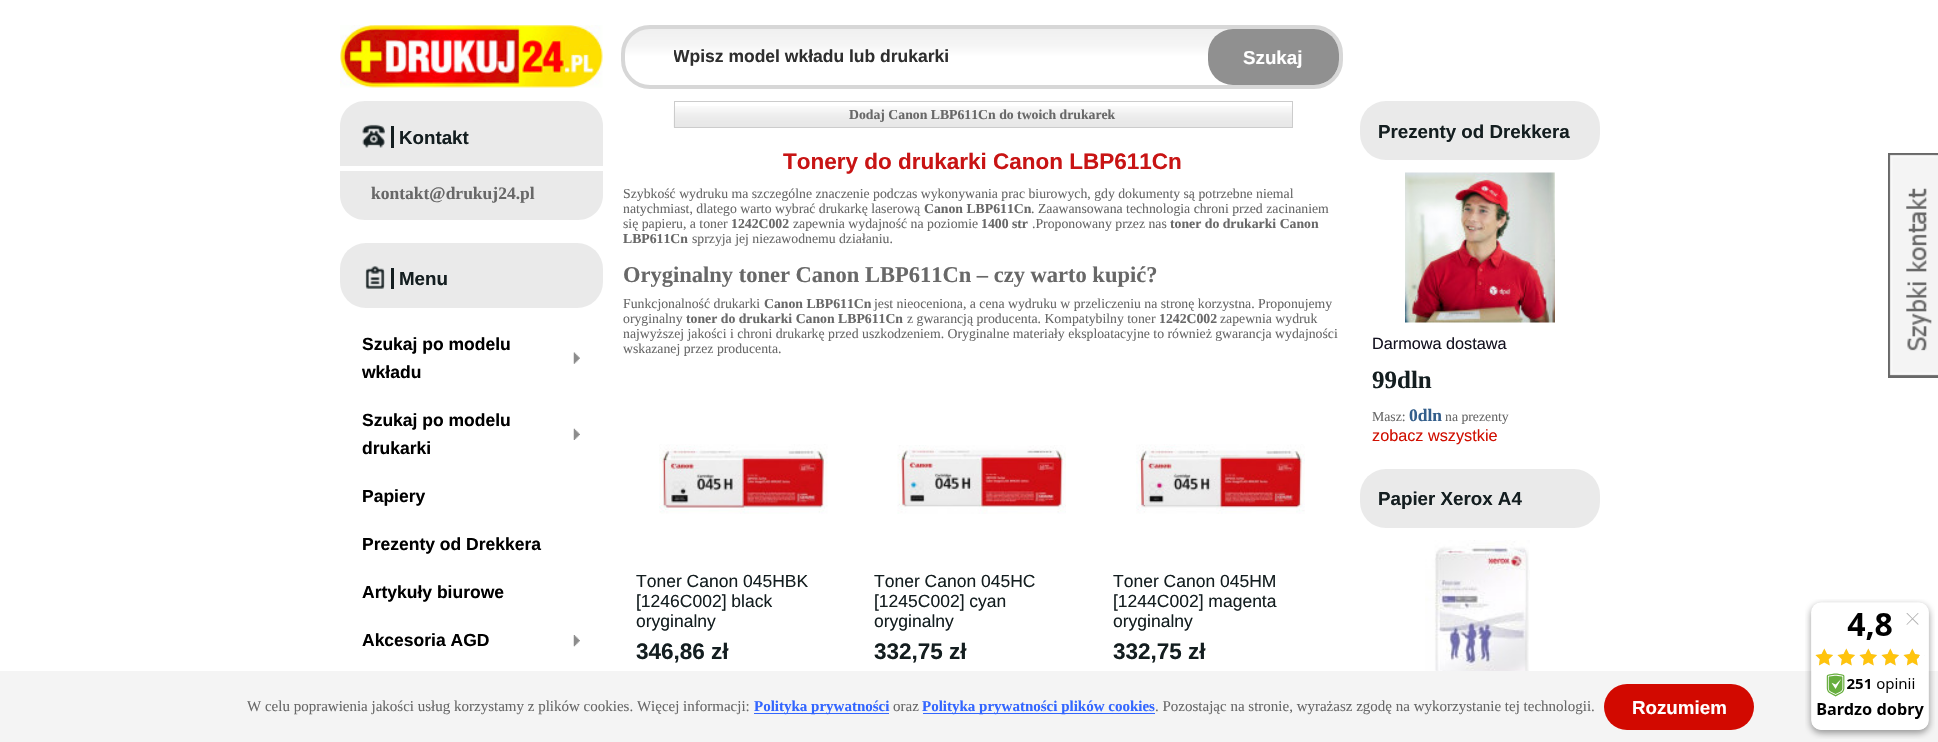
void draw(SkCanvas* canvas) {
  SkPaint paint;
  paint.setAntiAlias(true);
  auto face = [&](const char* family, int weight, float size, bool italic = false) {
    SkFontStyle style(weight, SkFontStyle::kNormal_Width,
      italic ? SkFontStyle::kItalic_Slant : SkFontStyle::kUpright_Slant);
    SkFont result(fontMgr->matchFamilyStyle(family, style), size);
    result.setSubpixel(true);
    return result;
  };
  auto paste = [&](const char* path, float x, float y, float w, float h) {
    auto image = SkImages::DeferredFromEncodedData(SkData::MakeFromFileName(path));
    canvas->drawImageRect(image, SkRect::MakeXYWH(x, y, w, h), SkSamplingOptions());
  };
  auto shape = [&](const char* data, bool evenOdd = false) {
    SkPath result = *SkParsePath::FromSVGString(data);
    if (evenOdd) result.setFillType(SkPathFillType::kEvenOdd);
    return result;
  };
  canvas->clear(0xffffffff);
  paste("img/1.png", 340, 25, 263, 63);
  canvas->save();
  canvas->clipPath(shape("M650 25H1314C1330 25 1343 38 1343 54V60C1343 76 1330 89 1314 89H650C634 89 621 76 621 60V54C621 38 634 25 650 25Z"), true);
  {
    const SkColor colors[] = {0xffffffff, 0xfff5f5f5, 0xfff0f0f0};
    const float stops[] = {0.5f, 0.71f, 1};
    const SkPoint ends[] = {{625, 85}, {625, 29}};
    paint.setShader(SkGradientShader::MakeLinear(ends, colors, stops, 3, SkTileMode::kClamp));
    paint.setAlpha(255);
  }
  canvas->drawRect(SkRect::MakeXYWH(621, 29, 722, 56), paint);
  canvas->restore();
  paint.setStroke(true);
  paint.setStrokeWidth(4);
  paint.setShader(nullptr);
  paint.setColor(0xffd7d7d7);
  canvas->drawRoundRect(SkRect::MakeXYWH(623, 27, 718, 60), 27, 27, paint);
  paint.setStroke(false);
  paint.setColor(0xff909090);
  canvas->drawRoundRect(SkRect::MakeXYWH(1208, 29, 131, 56), 25, 25, paint);
  paint.setColor(0xffeaeaea);
  canvas->drawPath(shape("M365 101H578C592 101 603 112 603 126V166H340V126C340 112 351 101 365 101Z"), paint);
  paste("img/2.png", 362, 124, 23, 24);
  paint.setColor(0xff141e20);
  canvas->drawRect(SkRect::MakeXYWH(391, 126, 3, 22), paint);
  paint.setColor(0xffeaeaea);
  canvas->drawPath(shape("M340 171H603V195C603 209 592 220 578 220H365C351 220 340 209 340 195Z"), paint);
  canvas->drawRoundRect(SkRect::MakeXYWH(340, 243, 263, 65), 26, 26, paint);
  paste("img/3.png", 365, 266, 20, 23);
  paint.setColor(0xff141e20);
  canvas->drawRect(SkRect::MakeXYWH(391, 268, 3, 21), paint);
  paste("img/4.png", 573, 352, 7, 12);
  paste("img/5.png", 573, 428, 7, 12);
  paste("img/6.png", 573, 635, 7, 12);
  paste("img/7.png", 673, 106, 619, 22);
  paint.setStroke(true);
  paint.setStrokeWidth(1);
  paint.setColor(0xffcccccc);
  canvas->drawRect(SkRect::MakeXYWH(674.5f, 101.5f, 618, 26), paint);
  paste("img/8.png", 659, 444, 169, 70);
  paste("img/9.png", 897, 445, 169, 69);
  paste("img/10.png", 1136, 444, 169, 70);
  paint.setStroke(false);
  paint.setColor(0xffeaeaea);
  canvas->drawRoundRect(SkRect::MakeXYWH(1360, 101, 240, 59), 26, 26, paint);
  paste("img/11.png", 1405, 172, 150, 151);
  canvas->drawRoundRect(SkRect::MakeXYWH(1360, 469, 240, 59), 26, 26, paint);
  paste("img/12.png", 1425, 540, 105, 131);
  {
    const struct { float x, y, w, h; SkColor color; } items[] = {
      {0, 671, 1938, 71, 0xfff4f4f4},
      {754, 713, 135, 1, 0xff3366ff},
      {923, 713, 232, 1, 0xff3366ff},
    };
    for (auto [x, y, w, h, color] : items) {
      paint.setColor(color);
      canvas->drawRect(SkRect::MakeXYWH(x, y, w, h), paint);
    }
  }
  paint.setColor(0xffd20900);
  canvas->drawRoundRect(SkRect::MakeXYWH(1604, 684, 150, 46), 23, 23, paint);
  paste("img/13.png", 1888, 153, 50, 225);
  paste("img/14.png", 1805, 599, 130, 140);
  canvas->save();
  canvas->clipRect(SkRect::MakeXYWH(674, 46, 531, 20));
  auto f0 = face("Liberation Sans", 700, 17.5f);
  paint.setColor(0xff2f2f2f);
  canvas->drawString("Wpisz model wkładu lub drukarki", 673, 62, f0, paint);
  canvas->restore();
  auto f1 = face("Liberation Sans", 700, 18.75f);
  paint.setColor(0xffffffff);
  canvas->drawString("Szukaj", 1243, 64, f1, paint);
  paint.setColor(0xff141e20);
  canvas->drawString("Kontakt", 399, 144, f1, paint);
  auto f2 = face("Liberation Serif", 700, 17.5f);
  paint.setColor(0xff686868);
  canvas->drawString("kontakt@drukuj24.pl", 371, 199, f2, paint);
  paint.setColor(0xff141e20);
  canvas->drawString("Menu", 399, 285, f1, paint);
  paint.setColor(0xff000000);
  {
    const struct { const char* s; float x, y; } items[] = {
      {"Szukaj po modelu", 362, 350},
      {"wkładu", 362, 378},
      {"Szukaj po modelu", 362, 426},
      {"drukarki", 362, 454},
      {"Papiery", 362, 502},
      {"Prezenty od Drekkera", 362, 550},
      {"Artykuły biurowe", 362, 598},
      {"Akcesoria AGD", 362, 646},
    };
    for (auto [s, x, y] : items) {
      canvas->drawString(s, x, y, f0, paint);
    }
  }
  auto f3 = face("Liberation Serif", 700, 13.75f);
  paint.setColor(0xff686868);
  canvas->drawString("Dodaj Canon LBP611Cn do twoich drukarek", 849, 119, f3, paint);
  auto f4 = face("Liberation Sans", 700, 22.5f);
  paint.setColor(0xffc81414);
  canvas->drawString("Tonery do drukarki Canon LBP611Cn", 783, 169, f4, paint);
  auto f5 = face("Liberation Serif", 400, 13.75f);
  paint.setColor(0xff686868);
  canvas->drawString("Szybkość wydruku ma szczególne znaczenie podczas wykonywania prac biurowych, gdy dokumenty są potrzebne niemal", 623, 198, f5, paint);
  canvas->drawString("natychmiast, dlatego warto wybrać drukarkę laserową", 623, 213, f5, paint);
  canvas->drawString("Canon LBP611Cn", 924, 213, f3, paint);
  canvas->drawString(". Zaawansowana technologia chroni przed zacinaniem", 1031, 213, f5, paint);
  canvas->drawString("się papieru, a toner", 623, 228, f5, paint);
  canvas->drawString("1242C002", 731, 228, f3, paint);
  canvas->drawString("zapewnia wydajność na poziomie", 793, 228, f5, paint);
  canvas->drawString("1400 str", 981, 228, f3, paint);
  canvas->drawString(".Proponowany przez nas", 1032, 228, f5, paint);
  canvas->drawString("toner do drukarki Canon", 1170, 228, f3, paint);
  canvas->drawString("LBP611Cn", 623, 243, f3, paint);
  canvas->drawString("sprzyja jej niezawodnemu działaniu.", 692, 243, f5, paint);
  auto f6 = face("Liberation Serif", 700, 22.5f);
  canvas->drawString("Oryginalny toner Canon LBP611Cn – czy warto kupić?", 623, 282, f6, paint);
  canvas->drawString("Funkcjonalność drukarki", 623, 308, f5, paint);
  canvas->drawString("Canon LBP611Cn", 764, 308, f3, paint);
  canvas->drawString("jest nieoceniona, a cena wydruku w przeliczeniu na stronę korzystna. Proponujemy", 874, 308, f5, paint);
  canvas->drawString("oryginalny", 623, 323, f5, paint);
  canvas->drawString("toner do drukarki Canon LBP611Cn", 686, 323, f3, paint);
  canvas->drawString("z gwarancją producenta. Kompatybilny toner", 907, 323, f5, paint);
  canvas->drawString("1242C002", 1159, 323, f3, paint);
  {
    const struct { const char* s; float x, y; } items[] = {
      {"zapewnia wydruk", 1220, 323},
      {"najwyższej jakości i chroni drukarkę przed uszkodzeniem. Oryginalne materiały eksploatacyjne to również gwarancja wydajności", 623, 338},
      {"wskazanej przez producenta.", 623, 353},
    };
    for (auto [s, x, y] : items) {
      canvas->drawString(s, x, y, f5, paint);
    }
  }
  auto f7 = face("Liberation Sans", 400, 17.5f);
  paint.setColor(0xff141e20);
  {
    const struct { const char* s; float x, y; } items[] = {
      {"Toner Canon 045HBK", 636, 587},
      {"[1246C002] black", 636, 607},
      {"oryginalny", 636, 627},
    };
    for (auto [s, x, y] : items) {
      canvas->drawString(s, x, y, f7, paint);
    }
  }
  canvas->drawString("346,86 zł", 636, 659, f4, paint);
  {
    const struct { const char* s; float x, y; } items[] = {
      {"Toner Canon 045HC", 874, 587},
      {"[1245C002] cyan", 874, 607},
      {"oryginalny", 874, 627},
    };
    for (auto [s, x, y] : items) {
      canvas->drawString(s, x, y, f7, paint);
    }
  }
  canvas->drawString("332,75 zł", 874, 659, f4, paint);
  {
    const struct { const char* s; float x, y; } items[] = {
      {"Toner Canon 045HM", 1113, 587},
      {"[1244C002] magenta", 1113, 607},
      {"oryginalny", 1113, 627},
    };
    for (auto [s, x, y] : items) {
      canvas->drawString(s, x, y, f7, paint);
    }
  }
  canvas->drawString("332,75 zł", 1113, 659, f4, paint);
  canvas->drawString("Prezenty od Drekkera", 1378, 138, f1, paint);
  auto f8 = face("Liberation Sans", 400, 16.25f);
  paint.setColor(0xff141220);
  canvas->drawString("Darmowa dostawa", 1372, 349, f8, paint);
  auto f9 = face("Liberation Serif", 700, 25);
  paint.setColor(0xff141e20);
  canvas->drawString("99dln", 1372, 388, f9, paint);
  paint.setColor(0xff686868);
  canvas->drawString("Masz:", 1372, 421, f5, paint);
  paint.setColor(0xff335e8b);
  canvas->drawString("0dln", 1409, 421, f2, paint);
  paint.setColor(0xff686868);
  canvas->drawString("na prezenty", 1445, 421, f5, paint);
  paint.setColor(0xffd01002);
  canvas->drawString("zobacz wszystkie", 1372, 441, f8, paint);
  paint.setColor(0xff141e20);
  canvas->drawString("Papier Xerox A4", 1378, 505, f1, paint);
  auto f10 = face("Liberation Serif", 400, 15);
  paint.setColor(0xff686868);
  canvas->drawString("W celu poprawienia jakości usług korzystamy z plików cookies. Więcej informacji:", 247, 711, f10, paint);
  auto f11 = face("Liberation Serif", 700, 15);
  paint.setColor(0xff3366ff);
  canvas->drawString("Polityka prywatności", 754, 711, f11, paint);
  paint.setColor(0xff686868);
  canvas->drawString("oraz", 893, 711, f10, paint);
  paint.setColor(0xff3366ff);
  canvas->drawString("Polityka prywatności plików cookies", 922, 711, f11, paint);
  paint.setColor(0xff686868);
  canvas->drawString(". Pozostając na stronie, wyrażasz zgodę na wykorzystanie tej technologii.", 1155, 711, f10, paint);
  paint.setColor(0xffffffff);
  canvas->drawString("Rozumiem", 1632, 714, f1, paint);
}
